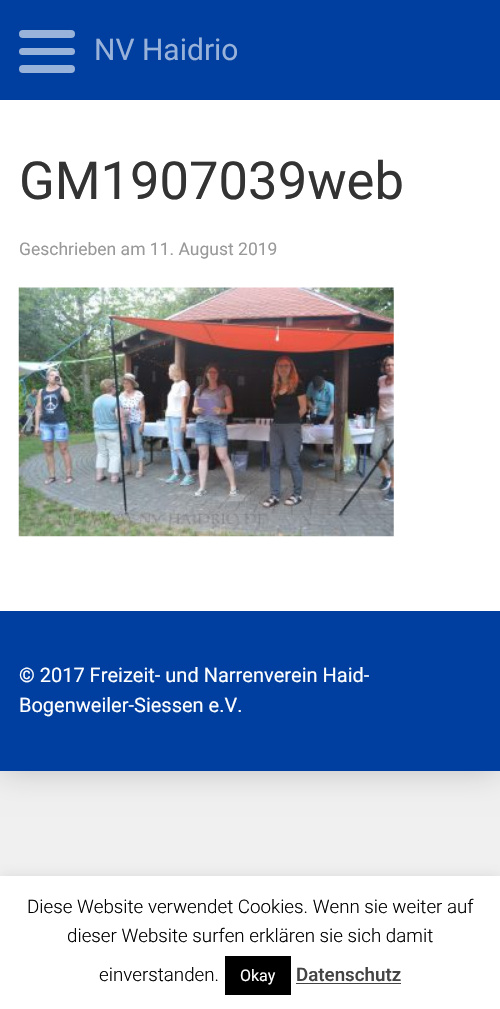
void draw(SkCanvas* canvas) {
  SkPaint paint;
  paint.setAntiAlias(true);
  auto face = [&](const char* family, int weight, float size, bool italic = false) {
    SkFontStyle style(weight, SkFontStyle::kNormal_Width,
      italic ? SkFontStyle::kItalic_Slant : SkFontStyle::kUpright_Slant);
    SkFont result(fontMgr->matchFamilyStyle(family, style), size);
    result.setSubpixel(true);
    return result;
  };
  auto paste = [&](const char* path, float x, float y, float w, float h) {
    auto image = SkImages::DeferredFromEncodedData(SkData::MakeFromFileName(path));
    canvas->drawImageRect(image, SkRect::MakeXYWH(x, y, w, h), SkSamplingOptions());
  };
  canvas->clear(0xfff0f0f0);
  paint.setColor(0x33000000);
  paint.setMaskFilter(SkMaskFilter::MakeBlur(kNormal_SkBlurStyle, 15.5f));
  canvas->drawRect(SkRect::MakeXYWH(0, 0, 500, 771), paint);
  paint.setMaskFilter(nullptr);
  paint.setColor(0xffffffff);
  canvas->drawRect(SkRect::MakeXYWH(0, 100, 500, 511), paint);
  paint.setColor(0xff003f9f);
  canvas->drawRect(SkRect::MakeXYWH(0, 0, 500, 100), paint);
  paint.setColor(0xff99b2d9);
  canvas->drawRoundRect(SkRect::MakeXYWH(19, 30, 56, 8), 4, 4, paint);
  canvas->drawRoundRect(SkRect::MakeXYWH(19, 48, 56, 7), 3.5f, 3.5f, paint);
  canvas->drawRoundRect(SkRect::MakeXYWH(19, 65, 56, 8), 4, 4, paint);
  paste("img/1.png", 18, 287, 376, 250);
  paint.setColor(0xff003f9f);
  canvas->drawRect(SkRect::MakeXYWH(0, 611, 500, 160), paint);
  paint.setColor(0x4dacabab);
  paint.setMaskFilter(SkMaskFilter::MakeBlur(kNormal_SkBlurStyle, 6));
  canvas->drawRect(SkRect::MakeXYWH(0, 875, 500, 134), paint);
  paint.setMaskFilter(nullptr);
  {
    const struct { float x, y, w, h; SkColor color; } items[] = {
      {0, 876, 500, 133, 0xffffffff},
      {225, 956, 66, 39, 0xff000000},
      {296, 983, 105, 1, 0xff444444},
    };
    for (auto [x, y, w, h, color] : items) {
      paint.setColor(color);
      canvas->drawRect(SkRect::MakeXYWH(x, y, w, h), paint);
    }
  }
  auto f0 = face("Roboto", 400, 30);
  paint.setColor(0xff99b2d9);
  canvas->drawString("NV Haidrio", 94, 60, f0, paint);
  auto f1 = face("Roboto", 400, 52.5f);
  paint.setColor(0xff333333);
  canvas->drawString("GM1907039web", 19, 199, f1, paint);
  auto f2 = face("Roboto", 400, 17.5f);
  paint.setColor(0xff999999);
  canvas->drawString("Geschrieben am 11. August 2019", 19, 255, f2, paint);
  auto f3 = face("Roboto", 400, 20);
  paint.setColor(0xffffffff);
  canvas->drawString("© 2017 Freizeit- und Narrenverein Haid-", 19, 682, f3, paint);
  canvas->drawString("Bogenweiler-Siessen e.V.", 19, 712, f3, paint);
  auto f4 = face("Roboto", 300, 18.75f);
  paint.setColor(0xff000000);
  {
    const struct { const char* s; float x, y; } items[] = {
      {"Diese Website verwendet Cookies. Wenn sie weiter auf", 27, 913},
      {"dieser Website surfen erklären sie sich damit", 67, 942},
      {"einverstanden.", 99, 981},
    };
    for (auto [s, x, y] : items) {
      canvas->drawString(s, x, y, f4, paint);
    }
  }
  auto f5 = face("Roboto", 400, 16);
  paint.setColor(0xffffffff);
  canvas->drawString("Okay", 240, 981, f5, paint);
  auto f6 = face("Roboto", 500, 18.75f);
  paint.setColor(0xff444444);
  canvas->drawString("Datenschutz", 296, 981, f6, paint);
}
